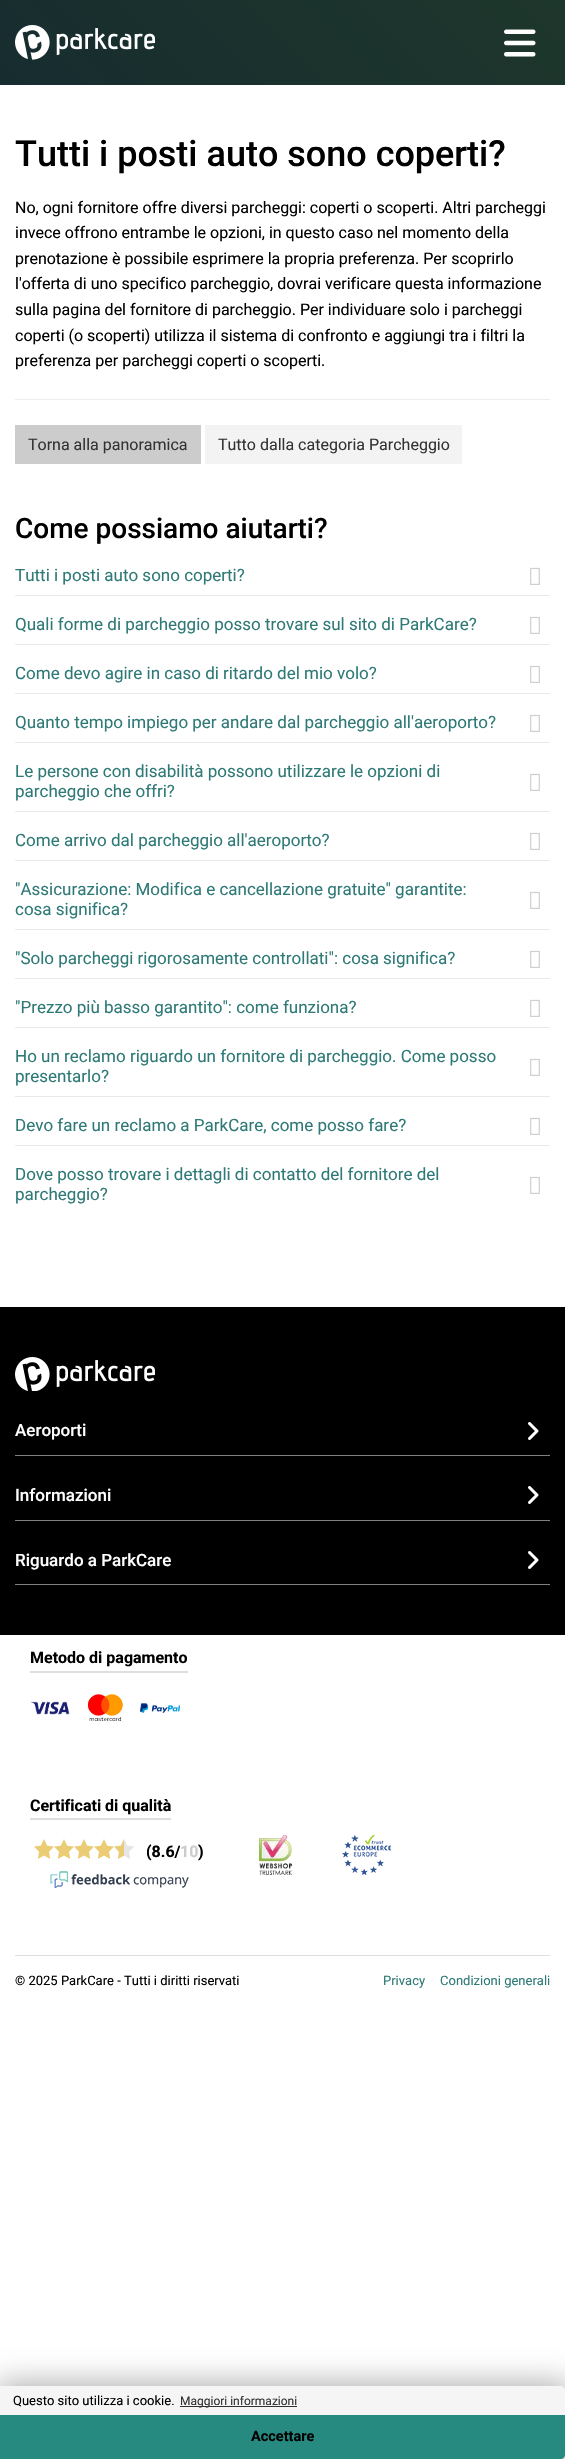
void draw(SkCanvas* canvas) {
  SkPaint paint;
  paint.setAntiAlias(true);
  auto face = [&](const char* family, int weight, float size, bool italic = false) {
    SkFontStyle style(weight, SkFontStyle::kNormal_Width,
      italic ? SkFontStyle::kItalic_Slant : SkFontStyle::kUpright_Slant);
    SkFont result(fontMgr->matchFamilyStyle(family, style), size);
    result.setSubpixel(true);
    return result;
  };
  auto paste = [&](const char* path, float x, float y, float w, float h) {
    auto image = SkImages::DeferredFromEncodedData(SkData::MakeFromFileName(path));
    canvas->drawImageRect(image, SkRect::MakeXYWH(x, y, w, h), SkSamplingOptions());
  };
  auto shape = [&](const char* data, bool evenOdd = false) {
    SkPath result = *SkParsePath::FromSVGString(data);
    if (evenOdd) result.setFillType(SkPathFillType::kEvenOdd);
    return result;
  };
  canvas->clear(0xffffffff);
  {
    const SkColor colors[] = {0xff172c2f, 0xff1e372c};
    const float stops[] = {0, 1};
    const SkPoint ends[] = {{120, 205}, {445, -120}};
    paint.setShader(SkGradientShader::MakeLinear(ends, colors, stops, 2, SkTileMode::kClamp));
    paint.setAlpha(255);
  }
  canvas->drawRect(SkRect::MakeXYWH(0, 0, 565, 85), paint);
  paste("img/1.png", 15, 25, 140, 35);
  paste("img/2.png", 504, 29, 32, 28);
  paint.setShader(nullptr);
  {
    const struct { float x, y, w, h; SkColor color; } items[] = {
      {15, 399, 535, 1, 0xffeeeeee},
      {15, 425, 186, 39, 0xffcccccc},
      {205, 425, 257, 39, 0xfff3f3f3},
      {15, 595, 535, 1, 0xffe9e9e9},
    };
    for (auto [x, y, w, h, color] : items) {
      paint.setColor(color);
      canvas->drawRect(SkRect::MakeXYWH(x, y, w, h), paint);
    }
  }
  paste("img/3.png", 530, 567, 10, 18);
  canvas->drawRect(SkRect::MakeXYWH(15, 644, 535, 1), paint);
  paste("img/3.png", 530, 616, 10, 18);
  canvas->drawRect(SkRect::MakeXYWH(15, 693, 535, 1), paint);
  paste("img/3.png", 530, 665, 10, 18);
  canvas->drawRect(SkRect::MakeXYWH(15, 742, 535, 1), paint);
  paste("img/3.png", 530, 714, 10, 18);
  canvas->drawRect(SkRect::MakeXYWH(15, 811, 535, 1), paint);
  paste("img/3.png", 530, 773, 10, 18);
  canvas->drawRect(SkRect::MakeXYWH(15, 860, 535, 1), paint);
  paste("img/3.png", 530, 832, 10, 18);
  canvas->drawRect(SkRect::MakeXYWH(15, 929, 535, 1), paint);
  paste("img/3.png", 530, 891, 10, 18);
  canvas->drawRect(SkRect::MakeXYWH(15, 978, 535, 1), paint);
  paste("img/3.png", 530, 950, 10, 18);
  canvas->drawRect(SkRect::MakeXYWH(15, 1027, 535, 1), paint);
  paste("img/3.png", 530, 999, 10, 18);
  canvas->drawRect(SkRect::MakeXYWH(15, 1096, 535, 1), paint);
  paste("img/3.png", 530, 1058, 10, 18);
  canvas->drawRect(SkRect::MakeXYWH(15, 1145, 535, 1), paint);
  paste("img/3.png", 530, 1117, 10, 18);
  paste("img/3.png", 530, 1176, 10, 18);
  paint.setColor(0xff000000);
  canvas->drawRect(SkRect::MakeXYWH(0, 1307, 565, 328), paint);
  paste("img/4.png", 15, 1357, 140, 34);
  paint.setColor(0xff808080);
  canvas->drawRect(SkRect::MakeXYWH(15, 1455, 535, 1), paint);
  paste("img/5.png", 528, 1422, 11, 18);
  canvas->drawRect(SkRect::MakeXYWH(15, 1520, 535, 1), paint);
  paste("img/5.png", 528, 1486, 11, 18);
  canvas->drawRect(SkRect::MakeXYWH(15, 1584, 535, 1), paint);
  paste("img/5.png", 528, 1551, 11, 18);
  paint.setColor(0xffdedede);
  canvas->drawRect(SkRect::MakeXYWH(30, 1671, 158, 2), paint);
  paste("img/6.png", 30, 1701, 40, 14);
  paste("img/7.png", 87, 1694, 36, 28);
  paste("img/8.png", 140, 1703, 40, 10);
  canvas->drawRect(SkRect::MakeXYWH(30, 1818, 141, 2), paint);
  paste("img/9.png", 34, 1839, 20, 20);
  paste("img/9.png", 54, 1839, 20, 20);
  paste("img/9.png", 74, 1839, 20, 20);
  paste("img/9.png", 94, 1839, 20, 20);
  paste("img/10.png", 114, 1839, 20, 20);
  paste("img/11.png", 50, 1871, 139, 17);
  paste("img/12.png", 259, 1835, 33, 40);
  paste("img/13.png", 342, 1835, 49, 40);
  canvas->drawRect(SkRect::MakeXYWH(15, 1955, 535, 1), paint);
  paint.setColor(0x4d000000);
  paint.setMaskFilter(SkMaskFilter::MakeBlur(kNormal_SkBlurStyle, 15));
  canvas->drawRoundRect(SkRect::MakeXYWH(-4, 2382, 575, 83), 9, 9, paint);
  paint.setMaskFilter(nullptr);
  paint.setColor(0xfff5f5f5);
  canvas->drawPath(shape("M0 2386H561C563 2386 565 2388 565 2390V2455C565 2457 563 2459 561 2459H0Z"), paint);
  paint.setColor(0xff313131);
  canvas->drawRect(SkRect::MakeXYWH(180, 2406, 117, 1), paint);
  paint.setColor(0xff278a81);
  canvas->drawPath(shape("M0 2415H565V2455C565 2457 563 2459 561 2459H0Z"), paint);
  auto f0 = face("Roboto", 500, 36);
  paint.setColor(0xff000000);
  canvas->drawString("Tutti i posti auto sono coperti?", 15, 166, f0, paint);
  auto f1 = face("Roboto", 400, 16);
  {
    const struct { const char* s; float x, y; } items[] = {
      {"No, ogni fornitore offre diversi parcheggi: coperti o scoperti. Altri parcheggi", 15, 213},
      {"invece offrono entrambe le opzioni, in questo caso nel momento della", 15, 238},
      {"prenotazione è possibile esprimere la propria preferenza. Per scoprirlo", 15, 264},
      {"l'offerta di uno specifico parcheggio, dovrai verificare questa informazione", 15, 289},
      {"sulla pagina del fornitore di parcheggio. Per individuare solo i parcheggi", 15, 315},
      {"coperti (o scoperti) utilizza il sistema di confronto e aggiungi tra i filtri la", 15, 341},
      {"preferenza per parcheggi coperti o scoperti.", 15, 366},
    };
    for (auto [s, x, y] : items) {
      canvas->drawString(s, x, y, f1, paint);
    }
  }
  paint.setColor(0xff333333);
  canvas->drawString("Torna alla panoramica", 28, 450, f1, paint);
  canvas->drawString("Tutto dalla categoria Parcheggio", 218, 450, f1, paint);
  auto f2 = face("Roboto", 500, 28);
  paint.setColor(0xff000000);
  canvas->drawString("Come possiamo aiutarti?", 15, 538, f2, paint);
  auto f3 = face("Roboto", 400, 17);
  paint.setColor(0xff2f7a77);
  {
    const struct { const char* s; float x, y; } items[] = {
      {"Tutti i posti auto sono coperti?", 15, 581},
      {"Quali forme di parcheggio posso trovare sul sito di ParkCare?", 15, 630},
      {"Come devo agire in caso di ritardo del mio volo?", 15, 679},
      {"Quanto tempo impiego per andare dal parcheggio all'aeroporto?", 15, 728},
      {"Le persone con disabilità possono utilizzare le opzioni di", 15, 777},
      {"parcheggio che offri?", 15, 797},
      {"Come arrivo dal parcheggio all'aeroporto?", 15, 846},
      {"\"Assicurazione: Modifica e cancellazione gratuite\" garantite:", 15, 895},
      {"cosa significa?", 15, 915},
      {"\"Solo parcheggi rigorosamente controllati\": cosa significa?", 15, 964},
      {"\"Prezzo più basso garantito\": come funziona?", 15, 1013},
      {"Ho un reclamo riguardo un fornitore di parcheggio. Come posso", 15, 1062},
      {"presentarlo?", 15, 1082},
      {"Devo fare un reclamo a ParkCare, come posso fare?", 15, 1131},
      {"Dove posso trovare i dettagli di contatto del fornitore del", 15, 1180},
      {"parcheggio?", 15, 1200},
    };
    for (auto [s, x, y] : items) {
      canvas->drawString(s, x, y, f3, paint);
    }
  }
  auto f4 = face("Roboto", 500, 17);
  paint.setColor(0xffffffff);
  {
    const struct { const char* s; float x, y; } items[] = {
      {"Aeroporti", 15, 1436},
      {"Informazioni", 15, 1501},
      {"Riguardo a ParkCare", 15, 1566},
    };
    for (auto [s, x, y] : items) {
      canvas->drawString(s, x, y, f4, paint);
    }
  }
  auto f5 = face("Roboto", 700, 16);
  paint.setColor(0xff000000);
  {
    const struct { const char* s; float x, y; } items[] = {
      {"Metodo di pagamento", 30, 1663},
      {"Certificati di qualità", 30, 1811},
      {"(8.6/", 146, 1857},
    };
    for (auto [s, x, y] : items) {
      canvas->drawString(s, x, y, f5, paint);
    }
  }
  paint.setColor(0xffcccccc);
  canvas->drawString("10", 180, 1857, f5, paint);
  paint.setColor(0xff000000);
  canvas->drawString(")", 198, 1857, f5, paint);
  auto f6 = face("Roboto", 400, 13);
  canvas->drawString("© 2025 ParkCare - Tutti i diritti riservati", 15, 1985, f6, paint);
  paint.setColor(0xff2f7a77);
  canvas->drawString("Privacy", 383, 1985, f6, paint);
  canvas->drawString("Condizioni generali", 440, 1985, f6, paint);
  paint.setColor(0xff000000);
  canvas->drawString("Questo sito utilizza i cookie.", 13, 2405, f6, paint);
  auto f7 = face("Roboto", 400, 12);
  paint.setColor(0xff333333);
  canvas->drawString("Maggiori informazioni", 180, 2405, f7, paint);
  auto f8 = face("Roboto", 700, 14.5f);
  paint.setColor(0xff000000);
  canvas->drawString("Accettare", 251, 2441, f8, paint);
}
